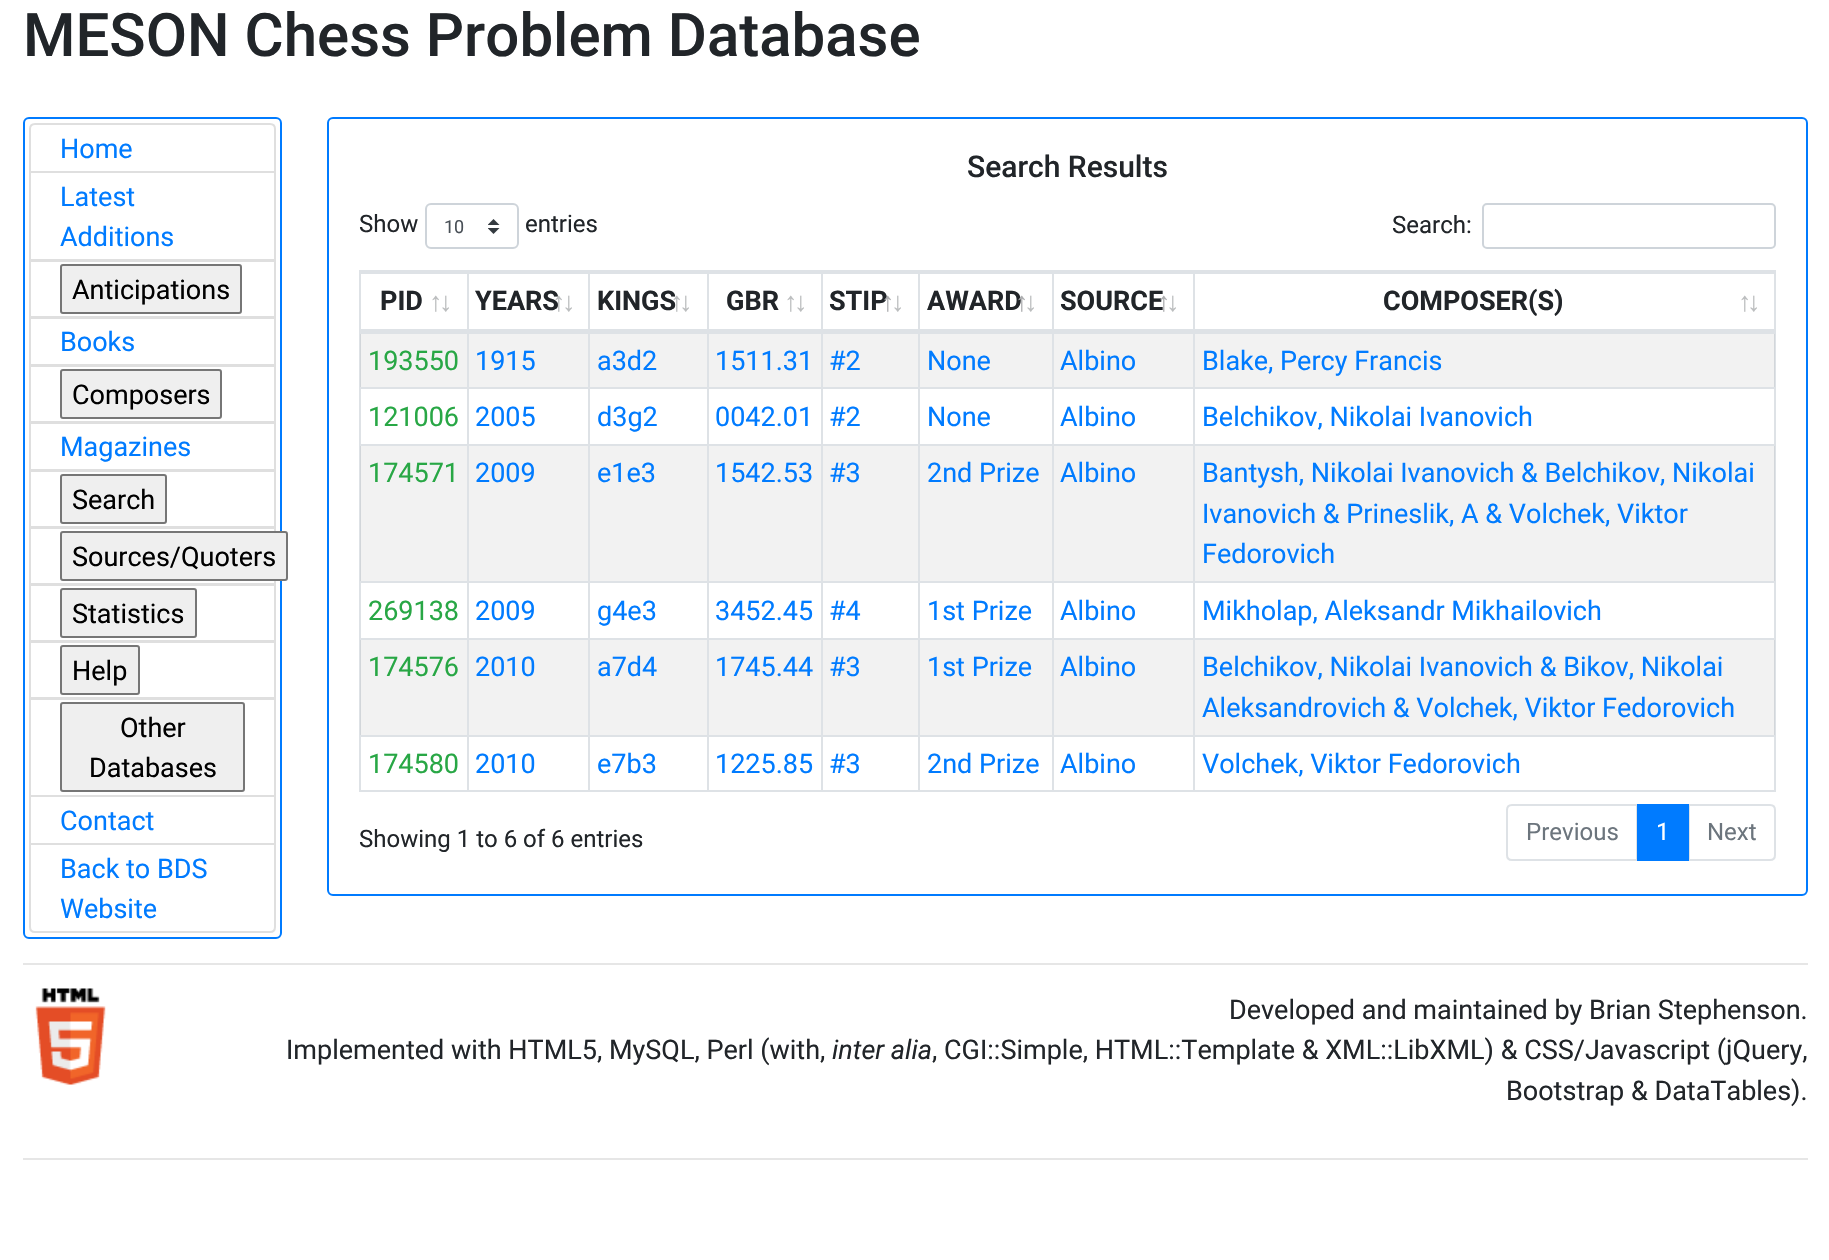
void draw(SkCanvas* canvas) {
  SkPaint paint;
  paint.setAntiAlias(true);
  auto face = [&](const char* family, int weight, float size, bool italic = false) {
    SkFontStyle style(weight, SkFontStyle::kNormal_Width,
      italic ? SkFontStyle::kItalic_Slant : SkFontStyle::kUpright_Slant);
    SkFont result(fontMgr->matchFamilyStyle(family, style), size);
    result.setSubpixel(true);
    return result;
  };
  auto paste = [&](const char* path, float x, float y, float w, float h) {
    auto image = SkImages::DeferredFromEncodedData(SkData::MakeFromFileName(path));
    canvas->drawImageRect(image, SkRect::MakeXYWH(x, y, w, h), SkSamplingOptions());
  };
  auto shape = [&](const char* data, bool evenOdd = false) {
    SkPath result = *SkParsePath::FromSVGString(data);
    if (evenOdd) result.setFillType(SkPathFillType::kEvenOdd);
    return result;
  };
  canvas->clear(0xffffffff);
  paint.setStroke(true);
  paint.setStrokeWidth(2);
  paint.setColor(0xff007bff);
  canvas->drawRoundRect(SkRect::MakeXYWH(24, 118, 257, 820), 5, 5, paint);
  paint.setColor(0xffdfdfdf);
  canvas->drawPath(shape("M35 124H270C273 124 275 126 275 129V172H30V129C30 126 32 124 35 124Z"), paint);
  canvas->drawRect(SkRect::MakeXYWH(30, 172, 245, 88), paint);
  canvas->drawRect(SkRect::MakeXYWH(30, 261, 245, 56), paint);
  paint.setStroke(false);
  paint.setColor(0xffefefef);
  canvas->drawRoundRect(SkRect::MakeXYWH(61, 265, 180, 48), 2, 2, paint);
  paint.setStroke(true);
  paint.setColor(0xff767676);
  canvas->drawRoundRect(SkRect::MakeXYWH(61, 265, 180, 48), 2, 2, paint);
  paint.setColor(0xffdfdfdf);
  canvas->drawRect(SkRect::MakeXYWH(30, 318, 245, 47), paint);
  canvas->drawRect(SkRect::MakeXYWH(30, 366, 245, 56), paint);
  paint.setStroke(false);
  paint.setColor(0xffefefef);
  canvas->drawRoundRect(SkRect::MakeXYWH(61, 370, 160, 48), 2, 2, paint);
  paint.setStroke(true);
  paint.setColor(0xff767676);
  canvas->drawRoundRect(SkRect::MakeXYWH(61, 370, 160, 48), 2, 2, paint);
  paint.setColor(0xffdfdfdf);
  canvas->drawRect(SkRect::MakeXYWH(30, 423, 245, 47), paint);
  canvas->drawRect(SkRect::MakeXYWH(30, 471, 245, 56), paint);
  paint.setStroke(false);
  paint.setColor(0xffefefef);
  canvas->drawRoundRect(SkRect::MakeXYWH(61, 475, 105, 48), 2, 2, paint);
  paint.setStroke(true);
  paint.setColor(0xff767676);
  canvas->drawRoundRect(SkRect::MakeXYWH(61, 475, 105, 48), 2, 2, paint);
  paint.setColor(0xffdfdfdf);
  canvas->drawRect(SkRect::MakeXYWH(30, 528, 245, 56), paint);
  paint.setStroke(false);
  paint.setColor(0xffefefef);
  canvas->drawRoundRect(SkRect::MakeXYWH(61, 532, 226, 48), 2, 2, paint);
  paint.setStroke(true);
  paint.setColor(0xff767676);
  canvas->drawRoundRect(SkRect::MakeXYWH(61, 532, 226, 48), 2, 2, paint);
  paint.setColor(0xffdfdfdf);
  canvas->drawRect(SkRect::MakeXYWH(30, 585, 245, 56), paint);
  paint.setStroke(false);
  paint.setColor(0xffefefef);
  canvas->drawRoundRect(SkRect::MakeXYWH(61, 589, 135, 48), 2, 2, paint);
  paint.setStroke(true);
  paint.setColor(0xff767676);
  canvas->drawRoundRect(SkRect::MakeXYWH(61, 589, 135, 48), 2, 2, paint);
  paint.setColor(0xffdfdfdf);
  canvas->drawRect(SkRect::MakeXYWH(30, 642, 245, 56), paint);
  paint.setStroke(false);
  paint.setColor(0xffefefef);
  canvas->drawRoundRect(SkRect::MakeXYWH(61, 646, 78, 48), 2, 2, paint);
  paint.setStroke(true);
  paint.setColor(0xff767676);
  canvas->drawRoundRect(SkRect::MakeXYWH(61, 646, 78, 48), 2, 2, paint);
  paint.setColor(0xffdfdfdf);
  canvas->drawRect(SkRect::MakeXYWH(30, 699, 245, 97), paint);
  paint.setStroke(false);
  paint.setColor(0xffefefef);
  canvas->drawRoundRect(SkRect::MakeXYWH(61, 703, 183, 88), 2, 2, paint);
  paint.setStroke(true);
  paint.setColor(0xff767676);
  canvas->drawRoundRect(SkRect::MakeXYWH(61, 703, 183, 88), 2, 2, paint);
  paint.setColor(0xffdfdfdf);
  canvas->drawRect(SkRect::MakeXYWH(30, 796, 245, 48), paint);
  paint.setStroke(false);
  paint.setColor(0xffffffff);
  canvas->drawPath(shape("M30 844H275V927C275 930 273 932 270 932H35C32 932 30 930 30 927Z"), paint);
  paint.setStroke(true);
  paint.setColor(0xffdfdfdf);
  canvas->drawPath(shape("M30 844H275V927C275 930 273 932 270 932H35C32 932 30 930 30 927Z"), paint);
  paint.setColor(0xff007bff);
  canvas->drawRoundRect(SkRect::MakeXYWH(328, 118, 1479, 777), 5, 5, paint);
  paste("img/1.png", 488, 219, 12, 15);
  paint.setColor(0xffced4da);
  canvas->drawRoundRect(SkRect::MakeXYWH(426, 204, 92, 44), 5, 5, paint);
  canvas->drawRoundRect(SkRect::MakeXYWH(1483, 204, 292, 44), 4, 4, paint);
  paint.setColor(0xffdee2e6);
  canvas->drawRect(SkRect::MakeXYWH(360, 271, 1415, 520), paint);
  paint.setStroke(false);
  {
    const struct { float x, y, w, h; SkColor color; } items[] = {
      {360, 272, 108, 2, 0xffdee2e6},
      {467, 272, 2, 60, 0xffdee2e6},
      {360, 329, 108, 3, 0xffdee2e6},
      {468, 272, 240, 2, 0xffdee2e6},
      {588, 272, 2, 60, 0xffdee2e6},
      {468, 329, 122, 3, 0xffdee2e6},
      {707, 272, 2, 60, 0xffdee2e6},
      {590, 329, 118, 3, 0xffdee2e6},
      {708, 272, 114, 2, 0xffdee2e6},
      {821, 272, 2, 60, 0xffdee2e6},
      {708, 329, 114, 3, 0xffdee2e6},
      {822, 272, 231, 2, 0xffdee2e6},
      {918, 272, 2, 60, 0xffdee2e6},
      {822, 329, 98, 3, 0xffdee2e6},
      {1052, 272, 2, 60, 0xffdee2e6},
      {920, 329, 133, 3, 0xffdee2e6},
      {1053, 272, 141, 2, 0xffdee2e6},
      {1193, 272, 2, 60, 0xffdee2e6},
      {1053, 329, 722, 3, 0xffdee2e6},
      {1194, 272, 581, 2, 0xffdee2e6},
      {360, 334, 1415, 53, 0x0d000000},
      {360, 332, 108, 2, 0xffdee2e6},
      {467, 332, 2, 55, 0xffdee2e6},
      {468, 332, 240, 2, 0xffdee2e6},
      {588, 332, 2, 55, 0xffdee2e6},
      {707, 332, 2, 55, 0xffdee2e6},
      {708, 332, 114, 2, 0xffdee2e6},
      {821, 332, 2, 55, 0xffdee2e6},
      {822, 332, 231, 2, 0xffdee2e6},
      {918, 332, 2, 55, 0xffdee2e6},
      {1052, 332, 2, 55, 0xffdee2e6},
      {1053, 332, 141, 2, 0xffdee2e6},
      {1193, 332, 2, 55, 0xffdee2e6},
      {1194, 332, 581, 2, 0xffdee2e6},
      {360, 387, 108, 2, 0xffdee2e6},
      {467, 387, 2, 57, 0xffdee2e6},
      {468, 387, 240, 2, 0xffdee2e6},
      {588, 387, 2, 57, 0xffdee2e6},
      {707, 387, 2, 57, 0xffdee2e6},
      {708, 387, 114, 2, 0xffdee2e6},
      {821, 387, 2, 57, 0xffdee2e6},
      {822, 387, 231, 2, 0xffdee2e6},
      {918, 387, 2, 57, 0xffdee2e6},
      {1052, 387, 2, 57, 0xffdee2e6},
      {1053, 387, 141, 2, 0xffdee2e6},
      {1193, 387, 2, 57, 0xffdee2e6},
      {1194, 387, 581, 2, 0xffdee2e6},
      {360, 446, 1415, 135, 0x0d000000},
      {360, 444, 108, 2, 0xffdee2e6},
      {467, 444, 2, 137, 0xffdee2e6},
      {468, 444, 240, 2, 0xffdee2e6},
      {588, 444, 2, 137, 0xffdee2e6},
      {707, 444, 2, 137, 0xffdee2e6},
      {708, 444, 114, 2, 0xffdee2e6},
      {821, 444, 2, 137, 0xffdee2e6},
      {822, 444, 231, 2, 0xffdee2e6},
      {918, 444, 2, 137, 0xffdee2e6},
      {1052, 444, 2, 137, 0xffdee2e6},
      {1053, 444, 141, 2, 0xffdee2e6},
      {1193, 444, 2, 137, 0xffdee2e6},
      {1194, 444, 581, 2, 0xffdee2e6},
      {360, 581, 108, 2, 0xffdee2e6},
      {467, 581, 2, 57, 0xffdee2e6},
      {468, 581, 240, 2, 0xffdee2e6},
      {588, 581, 2, 57, 0xffdee2e6},
      {707, 581, 2, 57, 0xffdee2e6},
      {708, 581, 114, 2, 0xffdee2e6},
      {821, 581, 2, 57, 0xffdee2e6},
      {822, 581, 231, 2, 0xffdee2e6},
      {918, 581, 2, 57, 0xffdee2e6},
      {1052, 581, 2, 57, 0xffdee2e6},
      {1053, 581, 141, 2, 0xffdee2e6},
      {1193, 581, 2, 57, 0xffdee2e6},
      {1194, 581, 581, 2, 0xffdee2e6},
      {360, 640, 1415, 95, 0x0d000000},
      {360, 638, 108, 2, 0xffdee2e6},
      {467, 638, 2, 97, 0xffdee2e6},
      {468, 638, 240, 2, 0xffdee2e6},
      {588, 638, 2, 97, 0xffdee2e6},
      {707, 638, 2, 97, 0xffdee2e6},
      {708, 638, 114, 2, 0xffdee2e6},
      {821, 638, 2, 97, 0xffdee2e6},
      {822, 638, 231, 2, 0xffdee2e6},
      {918, 638, 2, 97, 0xffdee2e6},
      {1052, 638, 2, 97, 0xffdee2e6},
      {1053, 638, 141, 2, 0xffdee2e6},
      {1193, 638, 2, 97, 0xffdee2e6},
      {1194, 638, 581, 2, 0xffdee2e6},
      {360, 735, 108, 2, 0xffdee2e6},
      {467, 735, 2, 56, 0xffdee2e6},
      {468, 735, 240, 2, 0xffdee2e6},
      {588, 735, 2, 56, 0xffdee2e6},
      {707, 735, 2, 56, 0xffdee2e6},
      {708, 735, 114, 2, 0xffdee2e6},
      {821, 735, 2, 56, 0xffdee2e6},
      {822, 735, 231, 2, 0xffdee2e6},
      {918, 735, 2, 56, 0xffdee2e6},
      {1052, 735, 2, 56, 0xffdee2e6},
      {1053, 735, 141, 2, 0xffdee2e6},
      {1193, 735, 2, 56, 0xffdee2e6},
      {1194, 735, 581, 2, 0xffdee2e6},
    };
    for (auto [x, y, w, h, color] : items) {
      paint.setColor(color);
      canvas->drawRect(SkRect::MakeXYWH(x, y, w, h), paint);
    }
  }
  paint.setStroke(true);
  canvas->drawPath(shape("M1512 805H1637V860H1512C1509 860 1507 858 1507 855V810C1507 807 1509 805 1512 805Z"), paint);
  canvas->drawPath(shape("M1689 805H1770C1773 805 1775 807 1775 810V855C1775 858 1773 860 1770 860H1689Z"), paint);
  paint.setStroke(false);
  paint.setColor(0xff007bff);
  canvas->drawRect(SkRect::MakeXYWH(1637, 804, 52, 57), paint);
  paint.setColor(0xffe6e6e6);
  canvas->drawRect(SkRect::MakeXYWH(23, 963, 1785, 2), paint);
  paste("img/2.png", 35, 988, 71, 97);
  canvas->drawRect(SkRect::MakeXYWH(23, 1158, 1785, 2), paint);
  auto f0 = face("Roboto", 500, 60);
  paint.setColor(0xff212529);
  canvas->drawString("MESON Chess Problem Database", 23, 56, f0, paint);
  auto f1 = face("Roboto", 400, 27);
  paint.setColor(0xff007bff);
  {
    const struct { const char* s; float x, y; } items[] = {
      {"Home", 60, 158},
      {"Latest", 60, 206},
      {"Additions", 60, 246},
    };
    for (auto [s, x, y] : items) {
      canvas->drawString(s, x, y, f1, paint);
    }
  }
  paint.setColor(0xff000000);
  canvas->drawString("Anticipations", 72, 299, f1, paint);
  paint.setColor(0xff007bff);
  canvas->drawString("Books", 60, 351, f1, paint);
  paint.setColor(0xff000000);
  canvas->drawString("Composers", 72, 404, f1, paint);
  paint.setColor(0xff007bff);
  canvas->drawString("Magazines", 60, 456, f1, paint);
  paint.setColor(0xff000000);
  {
    const struct { const char* s; float x, y; } items[] = {
      {"Search", 72, 509},
      {"Sources/Quoters", 72, 566},
      {"Statistics", 72, 623},
      {"Help", 72, 680},
      {"Other", 120, 737},
      {"Databases", 89, 777},
    };
    for (auto [s, x, y] : items) {
      canvas->drawString(s, x, y, f1, paint);
    }
  }
  paint.setColor(0xff007bff);
  {
    const struct { const char* s; float x, y; } items[] = {
      {"Contact", 60, 830},
      {"Back to BDS", 60, 878},
      {"Website", 60, 918},
    };
    for (auto [s, x, y] : items) {
      canvas->drawString(s, x, y, f1, paint);
    }
  }
  auto f2 = face("Roboto", 500, 30);
  paint.setColor(0xff212529);
  canvas->drawString("Search Results", 967, 177, f2, paint);
  auto f3 = face("Roboto", 400, 24);
  canvas->drawString("Show", 359, 232, f3, paint);
  auto f4 = face("Roboto", 400, 18);
  paint.setColor(0xff495057);
  canvas->drawString("10", 444, 233, f4, paint);
  paint.setColor(0xff212529);
  canvas->drawString("entries", 525, 232, f3, paint);
  canvas->drawString("Search:", 1392, 233, f3, paint);
  auto f5 = face("Roboto", 700, 27);
  canvas->drawString("PID", 380, 310, f5, paint);
  auto f6 = face("Liberation Sans", 700, 27);
  paint.setColor(0xffbcbebf);
  canvas->drawString("↑", 429, 311, f6, paint);
  canvas->drawString("↓", 439, 311, f6, paint);
  paint.setColor(0xff212529);
  canvas->drawString("YEARS", 475, 310, f5, paint);
  paint.setColor(0xffbcbebf);
  canvas->drawString("↑", 552, 311, f6, paint);
  canvas->drawString("↓", 562, 311, f6, paint);
  paint.setColor(0xff212529);
  canvas->drawString("KINGS", 597, 310, f5, paint);
  paint.setColor(0xffbcbebf);
  canvas->drawString("↑", 670, 311, f6, paint);
  canvas->drawString("↓", 679, 311, f6, paint);
  paint.setColor(0xff212529);
  canvas->drawString("GBR", 726, 310, f5, paint);
  paint.setColor(0xffbcbebf);
  canvas->drawString("↑", 784, 311, f6, paint);
  canvas->drawString("↓", 794, 311, f6, paint);
  paint.setColor(0xff212529);
  canvas->drawString("STIP", 829, 310, f5, paint);
  paint.setColor(0xffadaeb0);
  canvas->drawString("↑", 881, 311, f6, paint);
  paint.setColor(0xffbcbebf);
  canvas->drawString("↓", 891, 311, f6, paint);
  paint.setColor(0xff212529);
  canvas->drawString("AWARD", 927, 310, f5, paint);
  paint.setColor(0xffadaeb0);
  canvas->drawString("↑", 1015, 311, f6, paint);
  paint.setColor(0xffbcbebf);
  canvas->drawString("↓", 1024, 311, f6, paint);
  paint.setColor(0xff212529);
  canvas->drawString("SOURCE", 1060, 310, f5, paint);
  paint.setColor(0xffadaeb0);
  canvas->drawString("↑", 1157, 311, f6, paint);
  paint.setColor(0xffbcbebf);
  canvas->drawString("↓", 1166, 311, f6, paint);
  paint.setColor(0xff212529);
  canvas->drawString("COMPOSER(S)", 1383, 310, f5, paint);
  paint.setColor(0xffbcbebf);
  canvas->drawString("↑", 1738, 311, f6, paint);
  canvas->drawString("↓", 1747, 311, f6, paint);
  paint.setColor(0xff28a745);
  canvas->drawString("193550", 368, 370, f1, paint);
  paint.setColor(0xff007bff);
  {
    const struct { const char* s; float x, y; } items[] = {
      {"1915", 475, 370},
      {"a3d2", 597, 370},
      {"1511.31", 715, 370},
      {"#2", 829, 370},
      {"None", 927, 370},
      {"Albino", 1060, 370},
      {"Blake, Percy Francis", 1202, 370},
    };
    for (auto [s, x, y] : items) {
      canvas->drawString(s, x, y, f1, paint);
    }
  }
  paint.setColor(0xff28a745);
  canvas->drawString("121006", 368, 426, f1, paint);
  paint.setColor(0xff007bff);
  {
    const struct { const char* s; float x, y; } items[] = {
      {"2005", 475, 426},
      {"d3g2", 597, 426},
      {"0042.01", 715, 426},
      {"#2", 829, 426},
      {"None", 927, 426},
      {"Albino", 1060, 426},
      {"Belchikov, Nikolai Ivanovich", 1202, 426},
    };
    for (auto [s, x, y] : items) {
      canvas->drawString(s, x, y, f1, paint);
    }
  }
  paint.setColor(0xff28a745);
  canvas->drawString("174571", 368, 482, f1, paint);
  paint.setColor(0xff007bff);
  {
    const struct { const char* s; float x, y; } items[] = {
      {"2009", 475, 482},
      {"e1e3", 597, 482},
      {"1542.53", 715, 482},
      {"#3", 829, 482},
      {"2nd Prize", 927, 482},
      {"Albino", 1060, 482},
      {"Bantysh, Nikolai Ivanovich & Belchikov, Nikolai", 1202, 482},
      {"Ivanovich & Prineslik, A & Volchek, Viktor", 1202, 523},
      {"Fedorovich", 1202, 563},
    };
    for (auto [s, x, y] : items) {
      canvas->drawString(s, x, y, f1, paint);
    }
  }
  paint.setColor(0xff28a745);
  canvas->drawString("269138", 368, 620, f1, paint);
  paint.setColor(0xff007bff);
  {
    const struct { const char* s; float x, y; } items[] = {
      {"2009", 475, 620},
      {"g4e3", 597, 620},
      {"3452.45", 715, 620},
      {"#4", 829, 620},
      {"1st Prize", 927, 620},
      {"Albino", 1060, 620},
      {"Mikholap, Aleksandr Mikhailovich", 1202, 620},
    };
    for (auto [s, x, y] : items) {
      canvas->drawString(s, x, y, f1, paint);
    }
  }
  paint.setColor(0xff28a745);
  canvas->drawString("174576", 368, 676, f1, paint);
  paint.setColor(0xff007bff);
  {
    const struct { const char* s; float x, y; } items[] = {
      {"2010", 475, 676},
      {"a7d4", 597, 676},
      {"1745.44", 715, 676},
      {"#3", 829, 676},
      {"1st Prize", 927, 676},
      {"Albino", 1060, 676},
      {"Belchikov, Nikolai Ivanovich & Bikov, Nikolai", 1202, 676},
      {"Aleksandrovich & Volchek, Viktor Fedorovich", 1202, 717},
    };
    for (auto [s, x, y] : items) {
      canvas->drawString(s, x, y, f1, paint);
    }
  }
  paint.setColor(0xff28a745);
  canvas->drawString("174580", 368, 773, f1, paint);
  paint.setColor(0xff007bff);
  {
    const struct { const char* s; float x, y; } items[] = {
      {"2010", 475, 773},
      {"e7b3", 597, 773},
      {"1225.85", 715, 773},
      {"#3", 829, 773},
      {"2nd Prize", 927, 773},
      {"Albino", 1060, 773},
      {"Volchek, Viktor Fedorovich", 1202, 773},
    };
    for (auto [s, x, y] : items) {
      canvas->drawString(s, x, y, f1, paint);
    }
  }
  paint.setColor(0xff212529);
  canvas->drawString("Showing 1 to 6 of 6 entries", 359, 847, f3, paint);
  paint.setColor(0xff6c757d);
  canvas->drawString("Previous", 1526, 840, f3, paint);
  paint.setColor(0xffffffff);
  canvas->drawString("1", 1656, 840, f3, paint);
  paint.setColor(0xff6c757d);
  canvas->drawString("Next", 1707, 840, f3, paint);
  paint.setColor(0xff212529);
  canvas->drawString("Developed and maintained by Brian Stephenson.", 1229, 1019, f1, paint);
  canvas->drawString("Implemented with HTML5, MySQL, Perl (with,", 286, 1059, f1, paint);
  auto f7 = face("Roboto", 400, 27, true);
  canvas->drawString("inter alia", 832, 1059, f7, paint);
  canvas->drawString(", CGI::Simple, HTML::Template & XML::LibXML) & CSS/Javascript (jQuery,", 932, 1059, f1, paint);
  canvas->drawString("Bootstrap & DataTables).", 1506, 1100, f1, paint);
}
